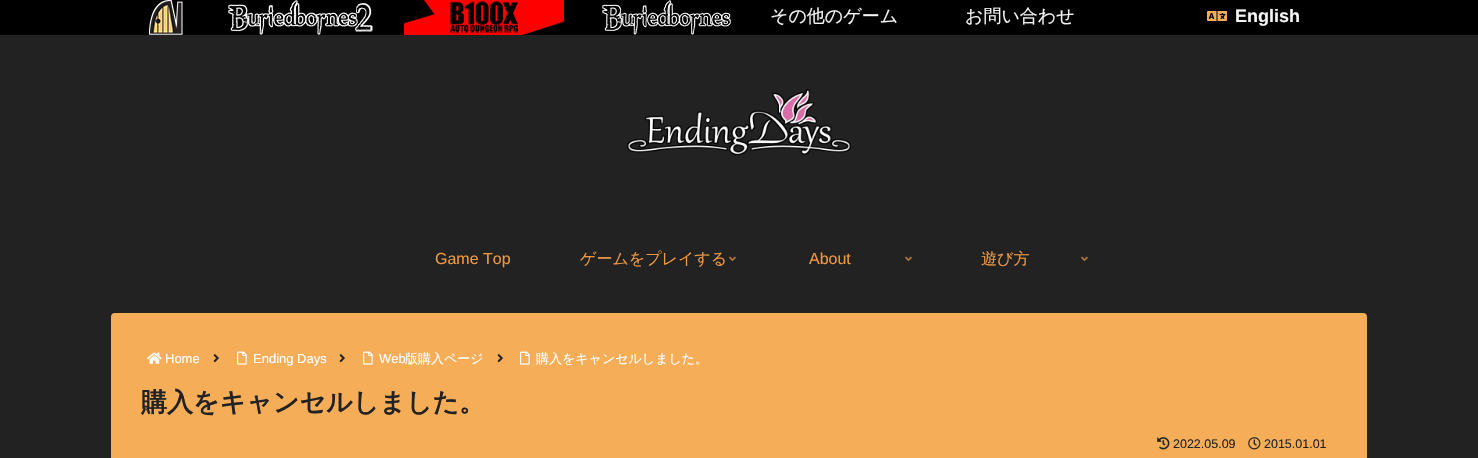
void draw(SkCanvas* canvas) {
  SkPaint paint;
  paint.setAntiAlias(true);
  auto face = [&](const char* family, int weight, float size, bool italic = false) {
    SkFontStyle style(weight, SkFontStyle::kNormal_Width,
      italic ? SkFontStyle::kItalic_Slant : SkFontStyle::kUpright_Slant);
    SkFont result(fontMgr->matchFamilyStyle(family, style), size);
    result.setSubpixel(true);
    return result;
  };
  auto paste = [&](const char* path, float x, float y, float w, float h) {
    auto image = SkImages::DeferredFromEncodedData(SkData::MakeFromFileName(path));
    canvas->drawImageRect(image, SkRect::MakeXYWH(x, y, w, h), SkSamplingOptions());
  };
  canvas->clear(0xff222222);
  paint.setColor(0xff000000);
  canvas->drawRect(SkRect::MakeXYWH(0, 0, 1478, 35), paint);
  paste("img/1.png", 149, 0, 34, 35);
  paste("img/2.png", 228, 0, 145, 35);
  paste("img/3.png", 404, 0, 160, 35);
  paste("img/4.png", 602, 0, 129, 35);
  paste("img/5.png", 1207, 11, 20, 10);
  paste("img/6.png", 627, 89, 224, 67);
  paste("img/7.png", 729, 256, 7, 5);
  paste("img/7.png", 905, 256, 7, 5);
  paste("img/7.png", 1081, 256, 7, 5);
  paint.setColor(0xfff5ad58);
  canvas->drawRoundRect(SkRect::MakeXYWH(111, 313, 1256, 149), 4, 4, paint);
  paste("img/8.png", 147, 352, 15, 12);
  paste("img/9.png", 213, 354, 6, 9);
  paste("img/10.png", 237, 351, 10, 14);
  paste("img/9.png", 339, 354, 6, 9);
  paste("img/10.png", 363, 351, 10, 14);
  paste("img/9.png", 497, 354, 6, 9);
  paste("img/10.png", 520, 351, 10, 14);
  paste("img/11.png", 1157, 437, 13, 13);
  paste("img/12.png", 1248, 437, 13, 13);
  auto f0 = face("WenQuanYi Zen Hei", 500, 18);
  paint.setColor(0xfff5f5f5);
  canvas->drawString("その他のゲーム", 770, 22, f0, paint);
  canvas->drawString("お問い合わせ", 965, 22, f0, paint);
  auto f1 = face("Liberation Sans", 700, 18);
  canvas->drawString("English", 1235, 22, f1, paint);
  auto f2 = face("Liberation Sans", 400, 16);
  paint.setColor(0xffee9944);
  canvas->drawString("Game Top", 435, 264, f2, paint);
  auto f3 = face("WenQuanYi Zen Hei", 500, 16);
  canvas->drawString("ゲームをプレイする", 580, 264, f3, paint);
  canvas->drawString("About", 809, 264, f2, paint);
  canvas->drawString("遊び方", 981, 264, f3, paint);
  auto f4 = face("Liberation Sans", 400, 13);
  paint.setColor(0xffffffff);
  {
    const struct { const char* s; float x, y; } items[] = {
      {"Home", 165, 363},
      {"Ending Days", 253, 363},
      {"Web", 379, 363},
    };
    for (auto [s, x, y] : items) {
      canvas->drawString(s, x, y, f4, paint);
    }
  }
  auto f5 = face("WenQuanYi Zen Hei", 500, 13);
  canvas->drawString("版購入ページ", 405, 363, f5, paint);
  canvas->drawString("購入をキャンセルしました。", 536, 363, f5, paint);
  auto f6 = face("WenQuanYi Zen Hei", 700, 26);
  paint.setColor(0xff222222);
  canvas->drawString("購入をキャンセルしました。", 141, 411, f6, paint);
  auto f7 = face("Liberation Sans", 400, 12.5f);
  canvas->drawString("2022.05.09", 1173, 448, f7, paint);
  canvas->drawString("2015.01.01", 1264, 448, f7, paint);
}
